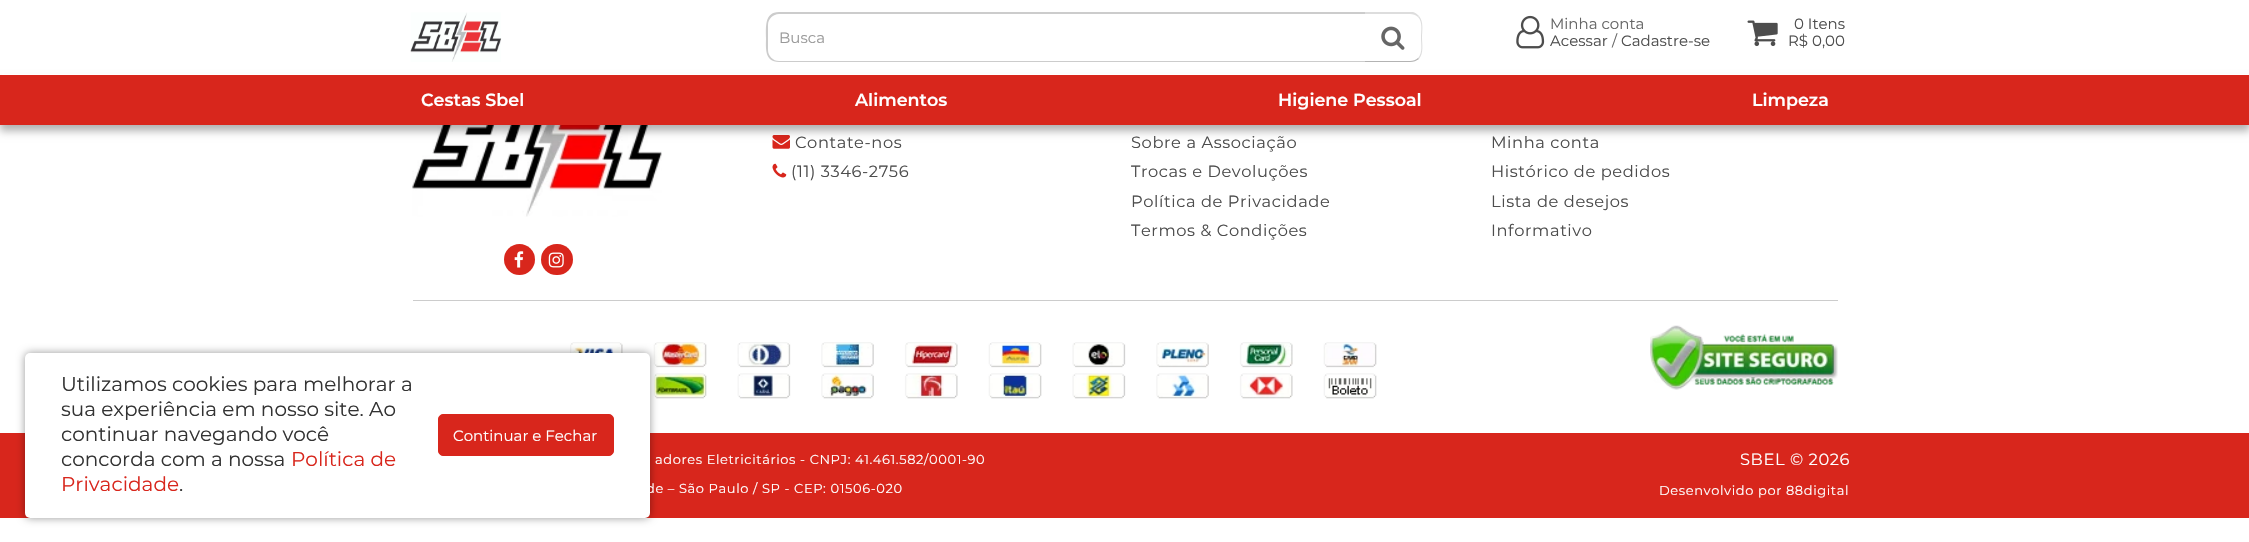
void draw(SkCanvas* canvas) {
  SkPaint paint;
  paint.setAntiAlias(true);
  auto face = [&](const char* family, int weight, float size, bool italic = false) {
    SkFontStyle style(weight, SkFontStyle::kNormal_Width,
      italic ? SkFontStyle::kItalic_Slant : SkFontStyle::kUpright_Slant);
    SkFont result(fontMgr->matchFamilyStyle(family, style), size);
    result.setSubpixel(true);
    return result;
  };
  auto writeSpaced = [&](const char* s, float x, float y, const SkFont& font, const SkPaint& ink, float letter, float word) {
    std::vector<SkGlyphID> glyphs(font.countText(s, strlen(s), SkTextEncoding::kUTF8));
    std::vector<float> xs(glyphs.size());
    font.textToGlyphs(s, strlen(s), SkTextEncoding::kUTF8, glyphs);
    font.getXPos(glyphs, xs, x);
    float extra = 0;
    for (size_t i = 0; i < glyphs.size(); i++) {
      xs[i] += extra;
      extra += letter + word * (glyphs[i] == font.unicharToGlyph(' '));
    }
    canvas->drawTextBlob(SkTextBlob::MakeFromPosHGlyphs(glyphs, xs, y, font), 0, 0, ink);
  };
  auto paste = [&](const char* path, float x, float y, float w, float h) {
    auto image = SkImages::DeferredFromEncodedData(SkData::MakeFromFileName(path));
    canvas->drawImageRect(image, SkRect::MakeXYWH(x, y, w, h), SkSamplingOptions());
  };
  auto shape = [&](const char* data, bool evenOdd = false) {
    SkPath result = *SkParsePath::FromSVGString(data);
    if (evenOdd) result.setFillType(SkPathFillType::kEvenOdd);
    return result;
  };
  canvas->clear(0xffffffff);
  paste("img/5.png", 412, 125, 250, 92);
  paste("img/8.png", 772, 135, 18, 14);
  paint.setColor(0x4d000000);
  paint.setMaskFilter(SkMaskFilter::MakeBlur(kNormal_SkBlurStyle, 4));
  canvas->drawRect(SkRect::MakeXYWH(0, 81, 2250, 50), paint);
  paint.setMaskFilter(nullptr);
  paint.setColor(0xffffffff);
  canvas->drawRect(SkRect::MakeXYWH(2, 74, 2246, 1), paint);
  paste("img/1.png", 410, 12, 92, 50);
  paint.setColor(0xffcccccc);
  canvas->drawPath(shape("M779 12H1365V62H779C764 62 766 47 766 38C766 28 764 12 779 12ZM779 14H1365V61H779C773 61 768 56 768 50V25C768 19 773 14 779 14Z", true), paint);
  paint.setColor(0xffdddddd);
  canvas->drawPath(shape("M1365 14H1410C1413 14 1416 15 1418 17L1419 16C1417 14 1416 13 1413 12H1365Z"), paint);
  canvas->drawPath(shape("M1418 58C1423 53 1421 44 1421 38C1421 31 1423 22 1418 17L1419 16C1424 22 1422 31 1422 38C1422 44 1424 53 1419 59Z"), paint);
  paint.setColor(0xffb3b3b3);
  canvas->drawPath(shape("M1365 61V62H1410C1414 62 1416 61 1419 59L1418 58C1416 60 1413 61 1410 61Z"), paint);
  paste("img/2.png", 1381, 26, 24, 24);
  paste("img/3.png", 1516, 15, 29, 34);
  paste("img/4.png", 1747, 20, 31, 27);
  paint.setColor(0xffd8261c);
  canvas->drawRect(SkRect::MakeXYWH(0, 75, 2249, 50), paint);
  paste("img/10.png", 570, 342, 807, 57);
  canvas->drawRect(SkRect::MakeXYWH(0, 433, 2249, 85), paint);
  paint.setColor(0x66000000);
  paint.setMaskFilter(SkMaskFilter::MakeBlur(kNormal_SkBlurStyle, 4));
  canvas->drawRoundRect(SkRect::MakeXYWH(25, 353, 625, 165), 5, 5, paint);
  paint.setMaskFilter(nullptr);
  paint.setColor(0xffffffff);
  canvas->drawRoundRect(SkRect::MakeXYWH(25, 353, 625, 165), 5, 5, paint);
  paint.setColor(0xffd8261c);
  canvas->drawRoundRect(SkRect::MakeXYWH(438.5f, 414.5f, 175, 41), 4.5f, 4.5f, paint);
  paint.setStroke(true);
  paint.setStrokeWidth(1);
  canvas->drawRoundRect(SkRect::MakeXYWH(438.5f, 414.5f, 175, 41), 4.5f, 4.5f, paint);
  paint.setStroke(false);
  canvas->drawCircle(519.5f, 259.5f, 15.5f, paint);
  paste("img/6.png", 514, 251, 10, 17);
  canvas->drawRoundRect(SkRect::MakeXYWH(541, 244, 32, 31), 15.5f, 15.5f, paint);
  paste("img/7.png", 548, 252, 16, 16);
  paste("img/9.png", 772, 163, 15, 15);
  paint.setColor(0xffcccccc);
  canvas->drawRect(SkRect::MakeXYWH(413, 300, 1425, 1), paint);
  paste("img/11.png", 1650, 325, 188, 65);
  auto f0 = face("Montserrat", 400, 15);
  paint.setColor(0xff999999);
  canvas->drawString("Busca", 779, 43, f0, paint);
  paint.setColor(0xff666666);
  canvas->drawString("Minha conta", 1550, 29, f0, paint);
  paint.setColor(0xff4d4d4d);
  canvas->drawString("Acessar", 1550, 46, f0, paint);
  paint.setColor(0xff666666);
  canvas->drawString("/", 1612, 46, f0, paint);
  paint.setColor(0xff4d4d4d);
  {
    const struct { const char* s; float x, y; } items[] = {
      {"Cadastre-se", 1621, 46},
      {"0 Itens", 1794, 29},
      {"R$ 0,00", 1788, 46},
    };
    for (auto [s, x, y] : items) {
      canvas->drawString(s, x, y, f0, paint);
    }
  }
  auto f1 = face("Montserrat", 600, 17.5f);
  paint.setColor(0xffffffff);
  {
    const struct { const char* s; float x, y; } items[] = {
      {"Cestas Sbel", 421, 106},
      {"Alimentos", 855, 106},
      {"Higiene Pessoal", 1278, 106},
      {"Limpeza", 1752, 106},
    };
    for (auto [s, x, y] : items) {
      canvas->drawString(s, x, y, f1, paint);
    }
  }
  auto f2 = face("Montserrat", 400, 20);
  paint.setColor(0xff333333);
  {
    const struct { const char* s; float x, y; } items[] = {
      {"Utilizamos cookies para melhorar a", 61, 391},
      {"sua experiência em nosso site. Ao", 61, 416},
      {"continuar navegando você", 61, 441},
      {"concorda com a nossa", 61, 466},
    };
    for (auto [s, x, y] : items) {
      canvas->drawString(s, x, y, f2, paint);
    }
  }
  paint.setColor(0xffd8261c);
  canvas->drawString("Política de", 291, 466, f2, paint);
  canvas->drawString("Privacidade", 61, 491, f2, paint);
  paint.setColor(0xff333333);
  canvas->drawString(".", 179, 491, f2, paint);
  paint.setColor(0xffffffff);
  canvas->drawString("Continuar e Fechar", 453, 441, f0, paint);
  auto f3 = face("Montserrat", 400, 16.25f);
  paint.setColor(0xff4d4d4d);
  {
    const struct { const char* s; float x, y; } items[] = {
      {"Contate-nos", 795, 148},
      {"(11) 3346-2756", 791, 177},
      {"Sobre a Associação", 1131, 148},
      {"Trocas e Devoluções", 1131, 177},
      {"Política de Privacidade", 1131, 207},
      {"Termos & Condições", 1131, 236},
      {"Minha conta", 1491, 148},
      {"Histórico de pedidos", 1491, 177},
      {"Lista de desejos", 1491, 207},
      {"Informativo", 1491, 236},
    };
    for (auto [s, x, y] : items) {
      writeSpaced(s, x, y, f3, paint, 0.6f, 0);
    }
  }
  auto f4 = face("Montserrat", 400, 13);
  paint.setColor(0xffffffff);
  writeSpaced("adores Eletricitários - CNPJ: 41.461.582/0001-90", 655, 464, f4, paint, 0.6f, 0);
  writeSpaced("de – São Paulo / SP - CEP: 01506-020", 646, 493, f4, paint, 0.6f, 0);
  writeSpaced("SBEL © 2026", 1740, 465, f3, paint, 0.6f, 0);
  writeSpaced("Desenvolvido por 88digital", 1659, 495, f4, paint, 0.6f, 0);
}
